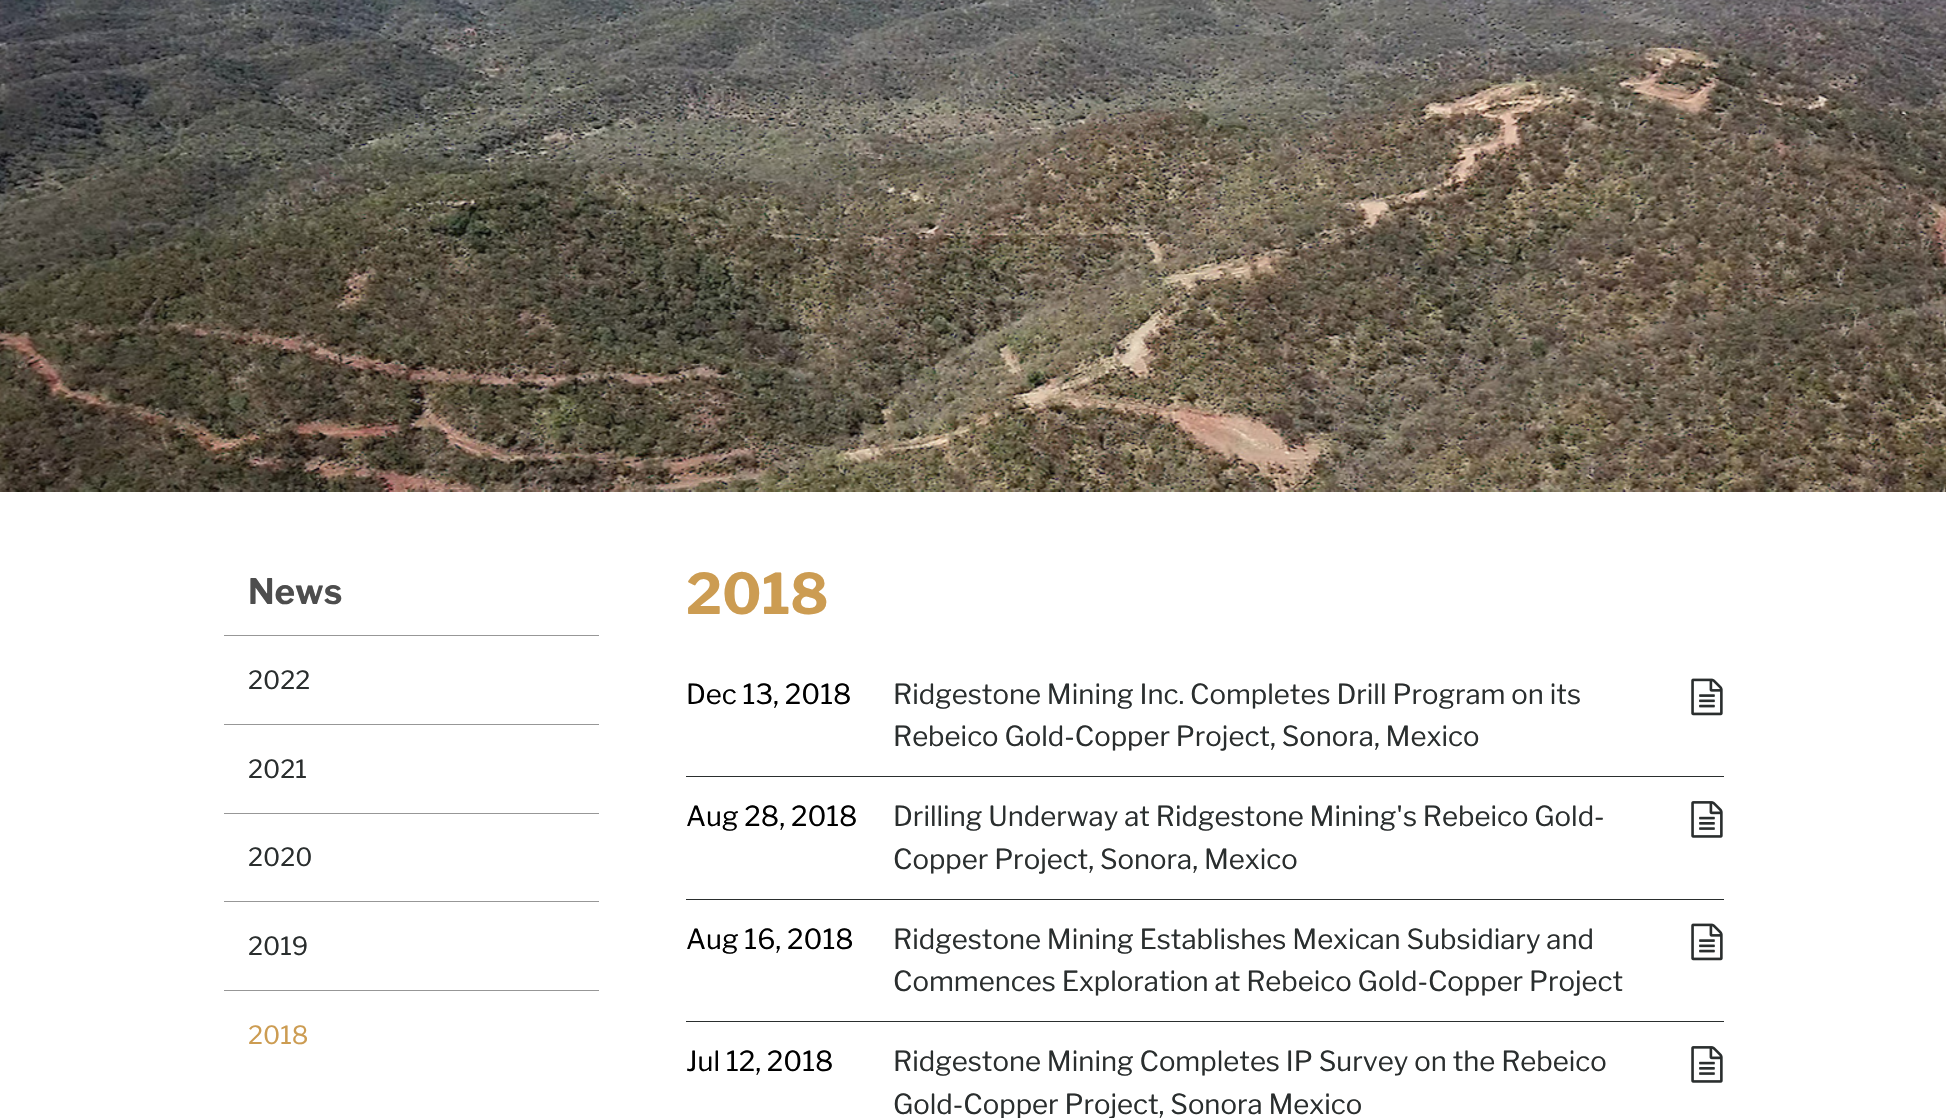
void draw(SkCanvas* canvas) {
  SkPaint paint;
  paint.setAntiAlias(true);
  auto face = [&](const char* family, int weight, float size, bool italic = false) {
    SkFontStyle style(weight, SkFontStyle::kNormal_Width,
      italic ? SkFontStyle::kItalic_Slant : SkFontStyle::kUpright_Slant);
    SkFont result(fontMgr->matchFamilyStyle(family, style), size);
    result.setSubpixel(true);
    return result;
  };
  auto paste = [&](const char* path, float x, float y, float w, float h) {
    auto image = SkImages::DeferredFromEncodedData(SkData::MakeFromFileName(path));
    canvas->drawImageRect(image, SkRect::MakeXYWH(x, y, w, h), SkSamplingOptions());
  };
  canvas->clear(0xffffffff);
  paste("img/1.png", 0, 0, 1946, 492);
  {
    const struct { float x, y, w, h; SkColor color; } items[] = {
      {224, 635, 375, 1, 0xff979797},
      {224, 724, 375, 1, 0xff979797},
      {224, 813, 375, 1, 0xff979797},
      {224, 901, 375, 1, 0xff979797},
      {224, 990, 375, 1, 0xff979797},
    };
    for (auto [x, y, w, h, color] : items) {
      paint.setColor(color);
      canvas->drawRect(SkRect::MakeXYWH(x, y, w, h), paint);
    }
  }
  paste("img/2.png", 1691, 678, 32, 38);
  paint.setColor(0xff2a2e2e);
  canvas->drawRect(SkRect::MakeXYWH(686, 776, 1038, 1), paint);
  paste("img/3.png", 1691, 801, 32, 37);
  canvas->drawRect(SkRect::MakeXYWH(686, 899, 1038, 1), paint);
  paste("img/2.png", 1691, 923, 32, 38);
  canvas->drawRect(SkRect::MakeXYWH(686, 1021, 1038, 1), paint);
  paste("img/3.png", 1691, 1046, 32, 37);
  auto f0 = face("Libre Franklin", 700, 35);
  paint.setColor(0xff4d4d4d);
  canvas->drawString("News", 248, 604, f0, paint);
  auto f1 = face("Libre Franklin", 400, 25);
  paint.setColor(0xff2a2e2e);
  {
    const struct { const char* s; float x, y; } items[] = {
      {"2022", 248, 689},
      {"2021", 248, 778},
      {"2020", 248, 866},
      {"2019", 248, 955},
    };
    for (auto [s, x, y] : items) {
      canvas->drawString(s, x, y, f1, paint);
    }
  }
  paint.setColor(0xffcc9c52);
  canvas->drawString("2018", 248, 1044, f1, paint);
  auto f2 = face("Libre Franklin", 700, 56);
  canvas->drawString("2018", 686, 614, f2, paint);
  auto f3 = face("Libre Franklin", 400, 27.5f);
  paint.setColor(0xff000000);
  canvas->drawString("Dec 13, 2018", 686, 704, f3, paint);
  paint.setColor(0xff2a2e2e);
  canvas->drawString("Ridgestone Mining Inc. Completes Drill Program on its", 893, 704, f3, paint);
  canvas->drawString("Rebeico Gold-Copper Project, Sonora, Mexico", 893, 746, f3, paint);
  paint.setColor(0xff000000);
  canvas->drawString("Aug 28, 2018", 686, 826, f3, paint);
  paint.setColor(0xff2a2e2e);
  canvas->drawString("Drilling Underway at Ridgestone Mining's Rebeico Gold-", 893, 826, f3, paint);
  canvas->drawString("Copper Project, Sonora, Mexico", 893, 869, f3, paint);
  paint.setColor(0xff000000);
  canvas->drawString("Aug 16, 2018", 686, 949, f3, paint);
  paint.setColor(0xff2a2e2e);
  canvas->drawString("Ridgestone Mining Establishes Mexican Subsidiary and", 893, 949, f3, paint);
  canvas->drawString("Commences Exploration at Rebeico Gold-Copper Project", 893, 991, f3, paint);
  paint.setColor(0xff000000);
  canvas->drawString("Jul 12, 2018", 686, 1071, f3, paint);
  paint.setColor(0xff2a2e2e);
  canvas->drawString("Ridgestone Mining Completes IP Survey on the Rebeico", 893, 1071, f3, paint);
  canvas->drawString("Gold-Copper Project, Sonora Mexico", 893, 1114, f3, paint);
}
